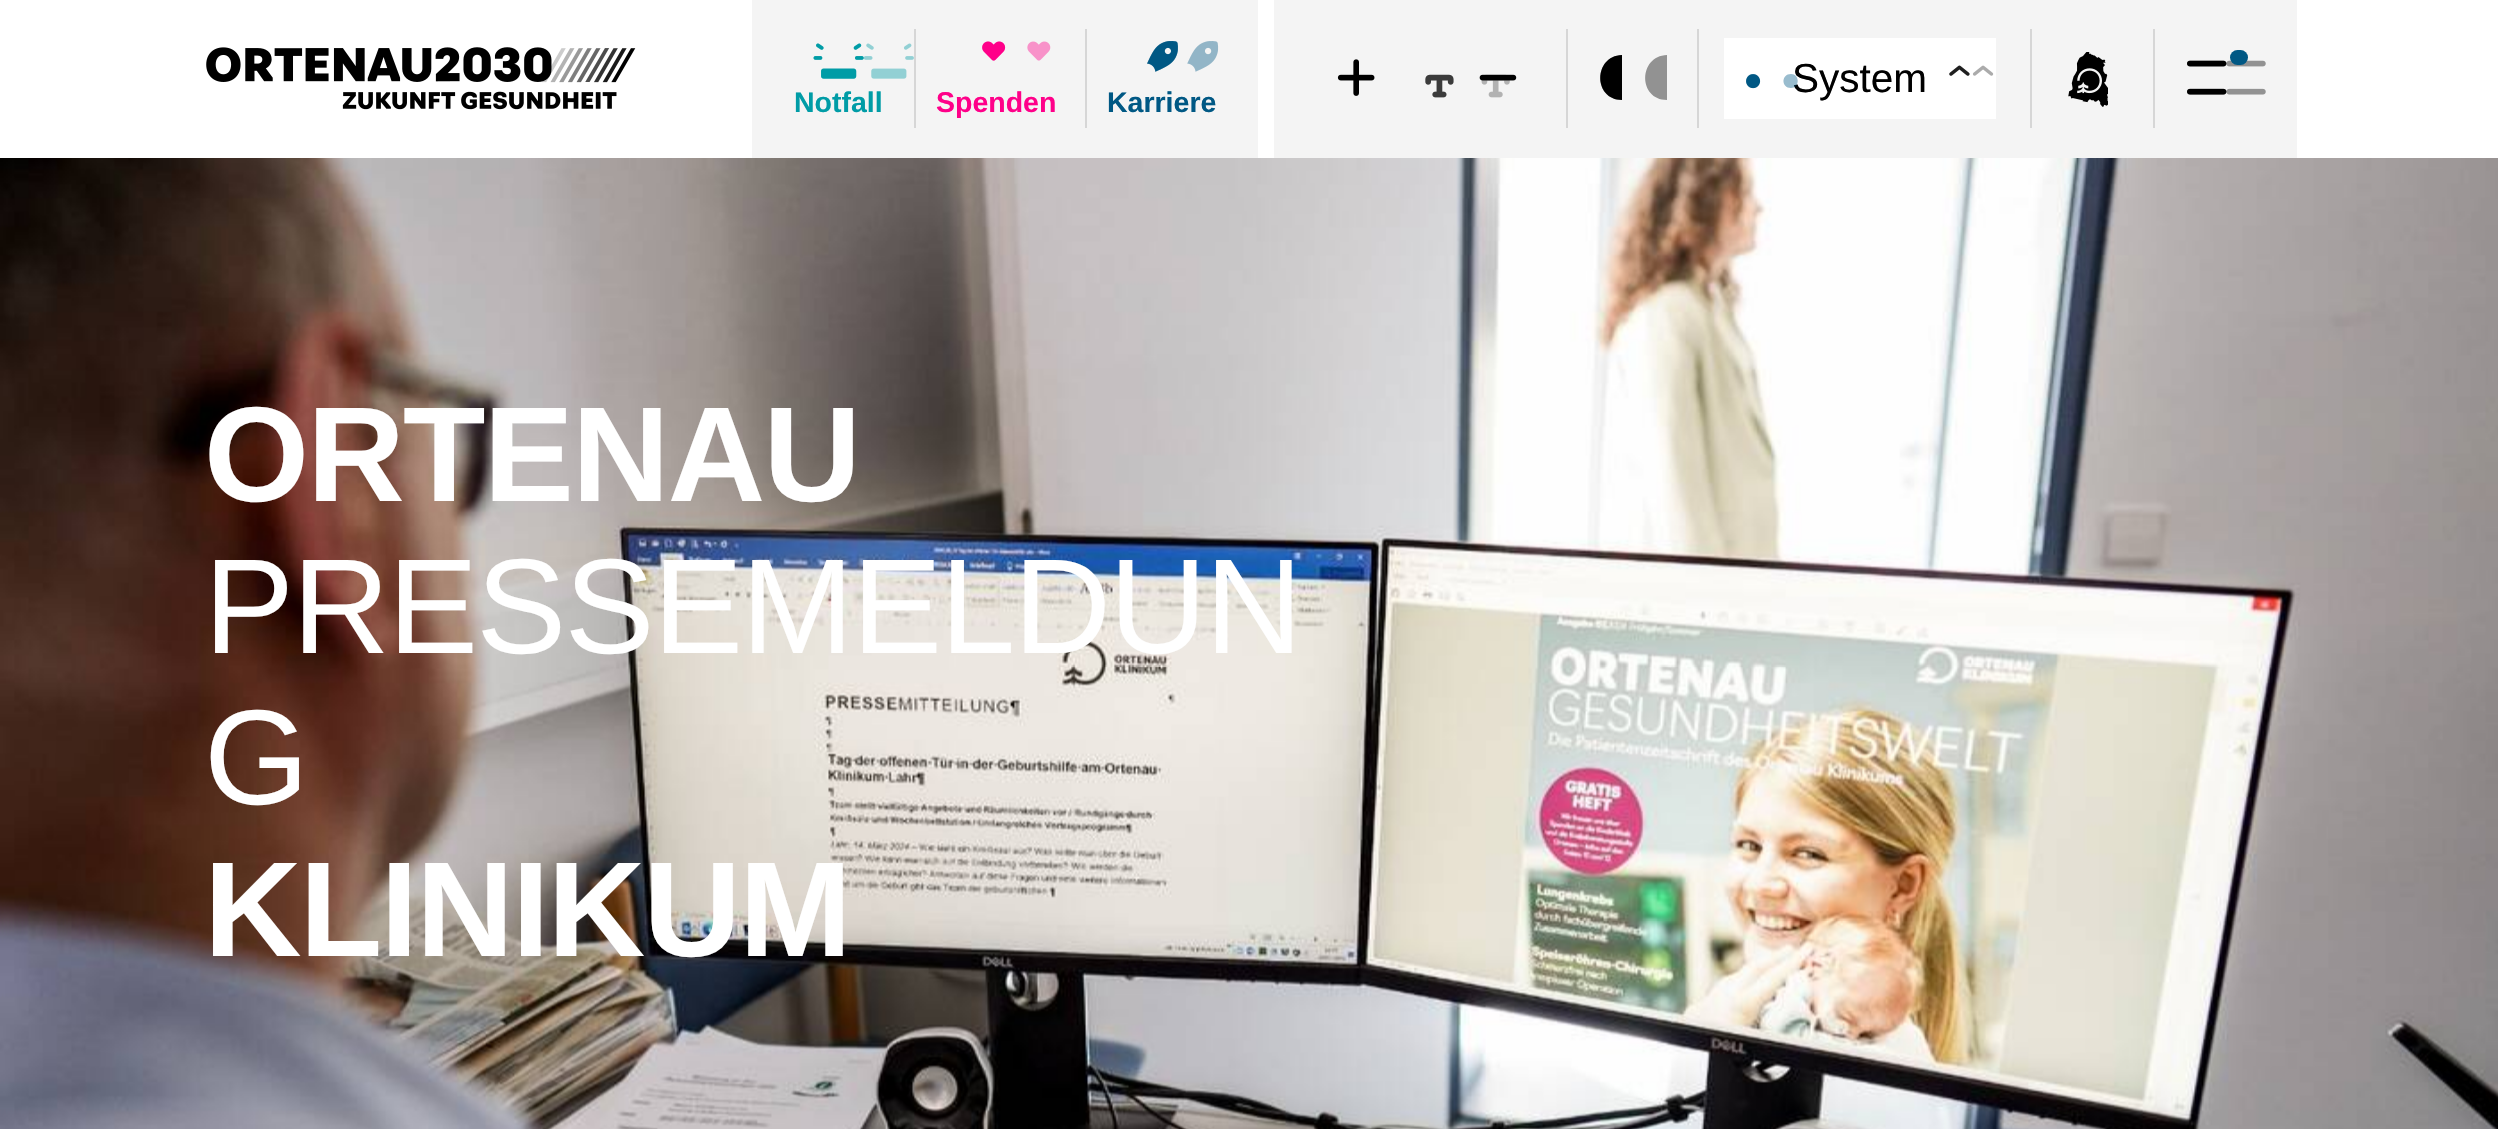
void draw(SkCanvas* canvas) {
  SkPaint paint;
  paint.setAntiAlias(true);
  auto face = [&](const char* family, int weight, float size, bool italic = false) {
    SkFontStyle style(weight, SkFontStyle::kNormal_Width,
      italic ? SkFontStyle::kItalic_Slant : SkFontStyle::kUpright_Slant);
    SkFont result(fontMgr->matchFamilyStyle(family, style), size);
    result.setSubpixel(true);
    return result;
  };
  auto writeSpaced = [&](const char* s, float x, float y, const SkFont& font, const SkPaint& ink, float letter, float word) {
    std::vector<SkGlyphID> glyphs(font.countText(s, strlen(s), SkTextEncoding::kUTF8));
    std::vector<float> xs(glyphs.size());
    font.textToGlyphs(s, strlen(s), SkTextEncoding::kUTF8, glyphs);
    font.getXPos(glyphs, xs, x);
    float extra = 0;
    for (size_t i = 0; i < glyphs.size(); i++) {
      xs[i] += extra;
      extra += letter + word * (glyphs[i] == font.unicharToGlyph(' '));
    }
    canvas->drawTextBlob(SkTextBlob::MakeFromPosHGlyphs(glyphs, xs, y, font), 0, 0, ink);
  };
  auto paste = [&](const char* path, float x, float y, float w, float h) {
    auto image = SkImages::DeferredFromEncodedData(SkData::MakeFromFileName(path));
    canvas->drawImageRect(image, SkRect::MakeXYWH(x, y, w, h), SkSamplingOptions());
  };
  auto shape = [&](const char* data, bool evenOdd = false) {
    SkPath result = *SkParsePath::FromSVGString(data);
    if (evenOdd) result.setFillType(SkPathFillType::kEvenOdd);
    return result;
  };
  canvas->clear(0xffffffff);
  paste("img/1.png", 206, 47, 430, 63);
  paint.setColor(0xfff4f4f4);
  canvas->drawRect(SkRect::MakeXYWH(1274, 0, 1023, 158), paint);
  paste("img/2.png", 1337, 59, 38, 37);
  paste("img/3.png", 1425, 74, 29, 24);
  paste("img/5.png", 1479, 74, 38, 7);
  paste("img/4.png", 1425, 74, 85, 24);
  paint.setColor(0xffd6d6d6);
  canvas->drawRect(SkRect::MakeXYWH(1566, 29, 2, 99), paint);
  paint.setColor(0xff000000);
  canvas->drawPath(shape("M1622 55C1593 56 1593 100 1622 100Z"), paint);
  paint.setColor(0x66000000);
  canvas->drawPath(shape("M1622 55C1593 56 1593 100 1622 100ZM1667 55C1638 56 1638 100 1667 100Z"), paint);
  paint.setColor(0xffd6d6d6);
  canvas->drawRect(SkRect::MakeXYWH(1697, 29, 2, 99), paint);
  paint.setColor(0xffffffff);
  canvas->drawRect(SkRect::MakeXYWH(1724, 38, 272, 81), paint);
  paste("img/6.png", 1949, 65, 21, 11);
  paste("img/7.png", 1949, 65, 45, 11);
  paste("img/8.png", 1746, 74, 15, 15);
  paint.setColor(0xffd6d6d6);
  canvas->drawRect(SkRect::MakeXYWH(2030, 29, 2, 99), paint);
  paste("img/9.png", 2068, 52, 40, 55);
  canvas->drawRect(SkRect::MakeXYWH(2153, 29, 2, 99), paint);
  paste("img/10.png", 2187, 60, 40, 35);
  paste("img/11.png", 2187, 60, 79, 35);
  paint.setColor(0xff005884);
  canvas->drawRoundRect(SkRect::MakeXYWH(2230, 50, 18, 15), 7.5f, 7.5f, paint);
  paint.setColor(0xfff4f4f4);
  canvas->drawRect(SkRect::MakeXYWH(752, 0, 506, 158), paint);
  paste("img/12.png", 813, 43, 51, 36);
  paste("img/13.png", 813, 43, 101, 36);
  paint.setColor(0xffd6d6d6);
  canvas->drawRect(SkRect::MakeXYWH(914, 29, 2, 99), paint);
  paste("img/14.png", 982, 41, 24, 20);
  paste("img/15.png", 982, 41, 69, 20);
  canvas->drawRect(SkRect::MakeXYWH(1085, 29, 2, 99), paint);
  paste("img/16.png", 1147, 41, 31, 31);
  paste("img/17.png", 1147, 41, 72, 31);
  paste("img/18.png", 0, 158, 2498, 971);
  auto f0 = face("Liberation Sans", 400, 40.5f);
  paint.setColor(0xff000000);
  canvas->drawString("System", 1792, 92, f0, paint);
  paint.setColor(0x66005884);
  canvas->drawPath(shape("M1753 74C1744 74 1744 88 1753 88C1762 88 1762 74 1753 74ZM1791 74C1781 74 1781 88 1791 88C1800 88 1800 74 1791 74Z"), paint);
  auto f1 = face("Liberation Sans", 700, 28.5f);
  paint.setColor(0xff009ca6);
  canvas->drawString("Notfall", 794, 112, f1, paint);
  paint.setColor(0xffff0089);
  canvas->drawString("Spenden", 936, 112, f1, paint);
  paint.setColor(0xff005884);
  canvas->drawString("Karriere", 1107, 112, f1, paint);
  auto f2 = face("Liberation Sans", 700, 135);
  paint.setColor(0xffffffff);
  writeSpaced("ORTENAU", 204, 501, f2, paint, -1.75f, 0);
  auto f3 = face("Liberation Sans", 400, 135);
  writeSpaced("PRESSEMELDUN", 204, 653, f3, paint, -1.75f, 0);
  writeSpaced("G", 204, 804, f3, paint, -1.75f, 0);
  writeSpaced("KLINIKUM", 204, 956, f2, paint, -1.75f, 0);
}
